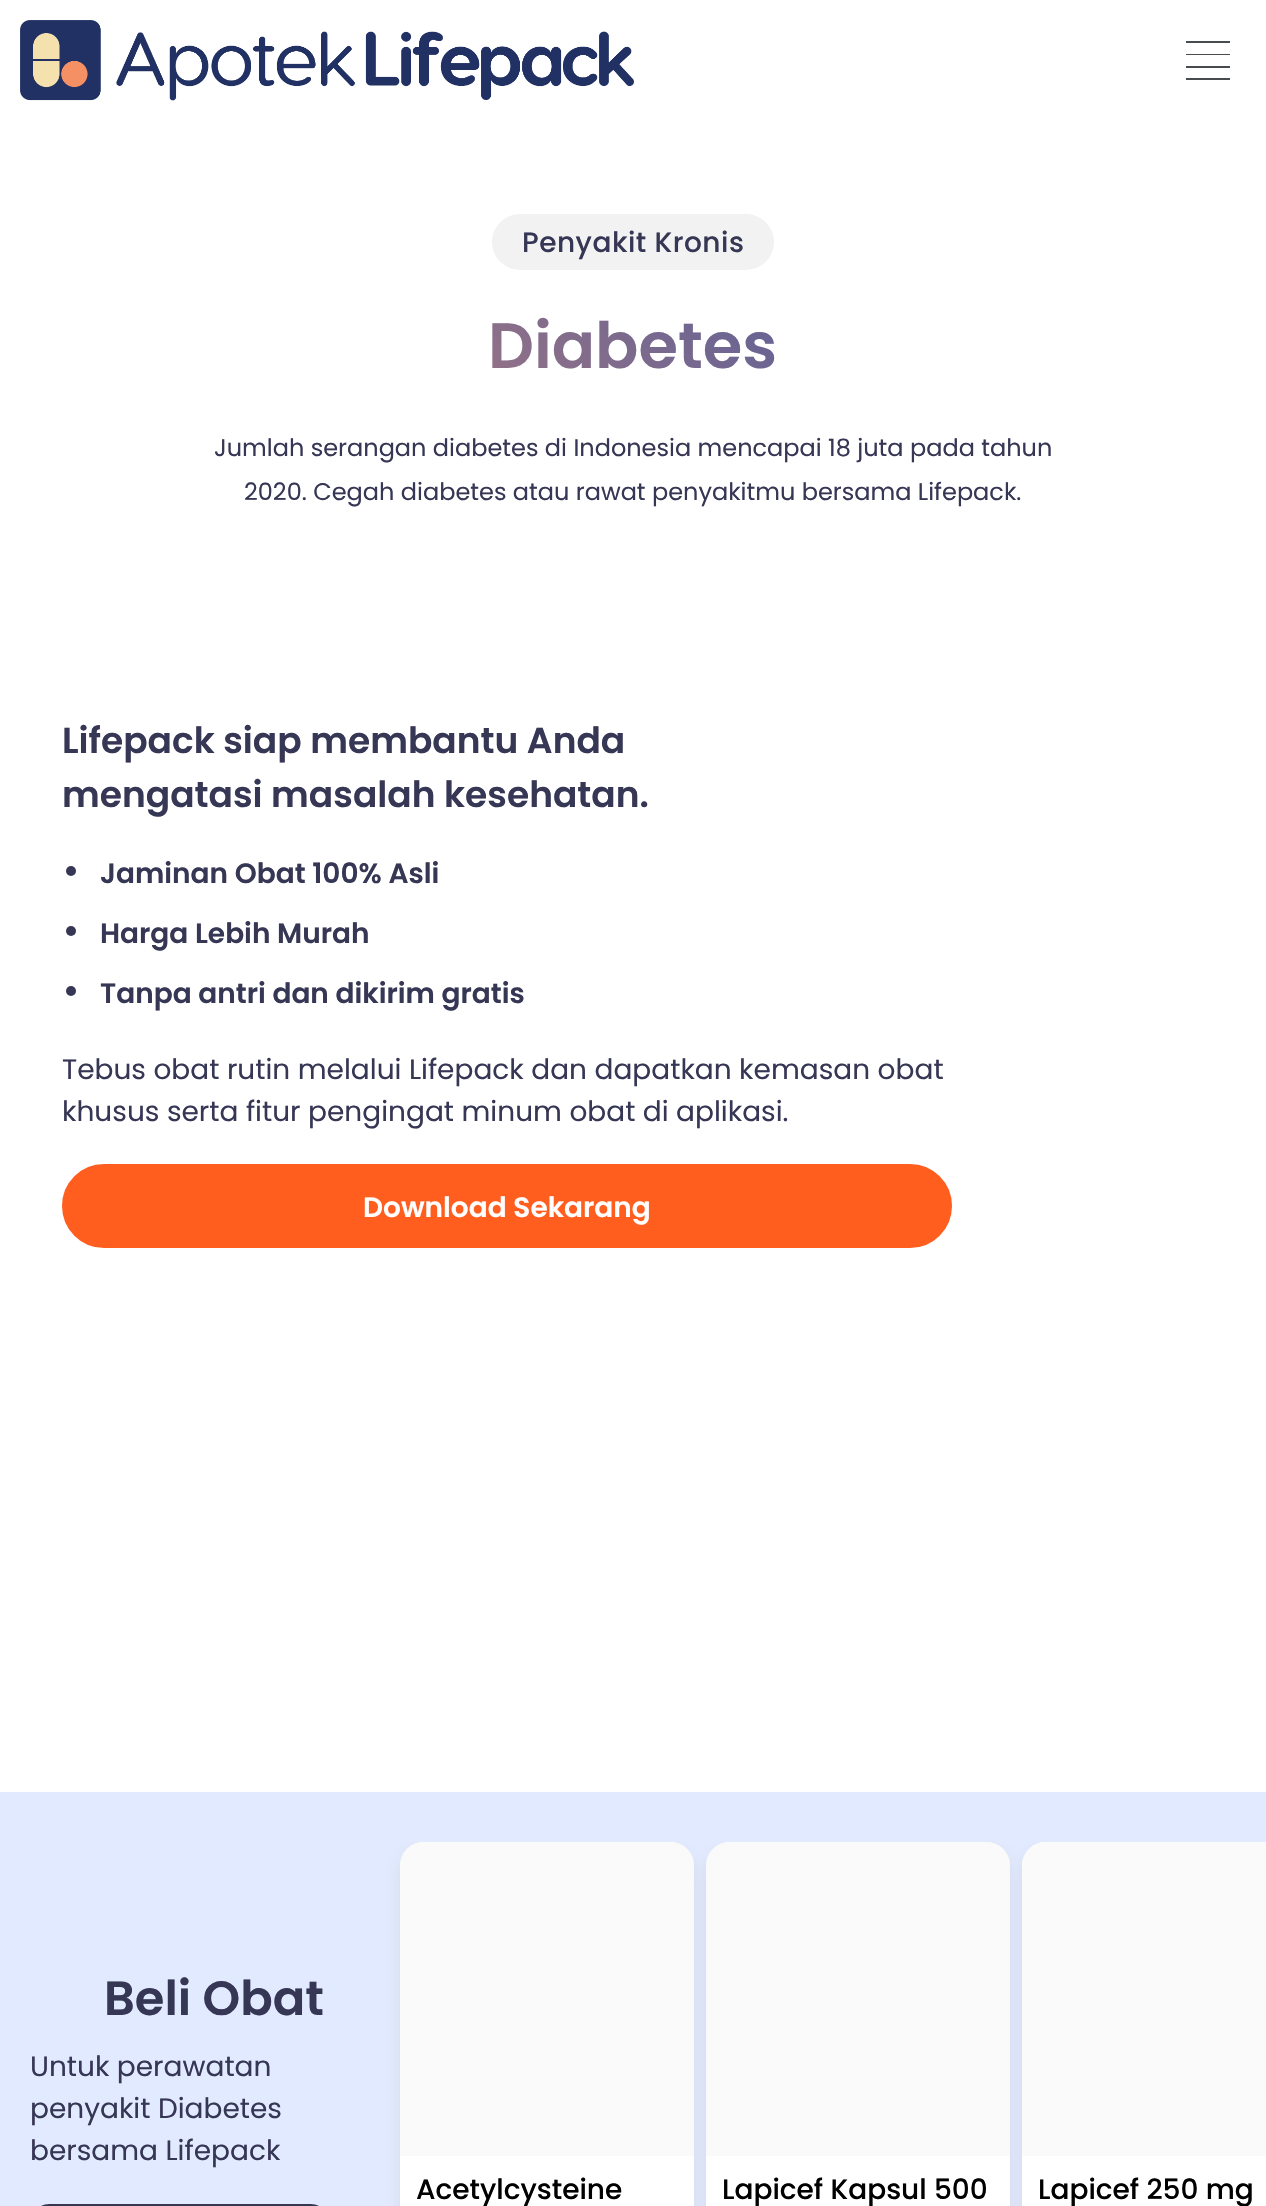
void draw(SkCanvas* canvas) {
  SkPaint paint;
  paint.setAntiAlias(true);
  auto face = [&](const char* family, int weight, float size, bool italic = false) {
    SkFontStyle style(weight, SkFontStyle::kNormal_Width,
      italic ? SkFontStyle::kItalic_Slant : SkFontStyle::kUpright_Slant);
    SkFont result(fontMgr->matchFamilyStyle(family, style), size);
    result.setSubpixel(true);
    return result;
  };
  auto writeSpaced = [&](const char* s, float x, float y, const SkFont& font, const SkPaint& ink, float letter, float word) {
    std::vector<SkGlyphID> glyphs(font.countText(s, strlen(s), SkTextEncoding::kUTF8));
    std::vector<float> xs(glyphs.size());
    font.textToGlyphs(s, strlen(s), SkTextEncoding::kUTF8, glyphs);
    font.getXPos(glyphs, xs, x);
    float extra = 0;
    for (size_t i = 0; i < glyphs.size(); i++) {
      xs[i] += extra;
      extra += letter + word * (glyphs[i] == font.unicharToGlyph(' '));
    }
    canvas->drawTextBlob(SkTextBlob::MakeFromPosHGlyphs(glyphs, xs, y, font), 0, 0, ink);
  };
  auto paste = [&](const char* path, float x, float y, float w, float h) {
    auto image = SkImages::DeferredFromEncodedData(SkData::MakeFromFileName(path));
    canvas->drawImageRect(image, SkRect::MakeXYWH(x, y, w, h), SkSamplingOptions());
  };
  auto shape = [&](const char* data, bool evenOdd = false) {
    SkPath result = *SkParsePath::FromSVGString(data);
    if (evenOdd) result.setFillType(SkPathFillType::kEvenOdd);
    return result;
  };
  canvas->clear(0xffffffff);
  paste("img/1.png", 20, 20, 614, 81);
  paint.setColor(0xff494c4f);
  canvas->drawPath(shape("M1186 41H1230V43H1186ZM1186 54H1230V55H1186ZM1186 66H1230V68H1186ZM1186 78H1230V80H1186Z"), paint);
  paint.setColor(0xfff2f2f2);
  canvas->drawRoundRect(SkRect::MakeXYWH(492, 214, 282, 56), 28, 28, paint);
  paint.setColor(0xff363655);
  canvas->drawCircle(71, 871, 5, paint);
  canvas->drawCircle(71, 931, 5, paint);
  canvas->drawCircle(71, 991, 5, paint);
  paint.setColor(0xffff5e1f);
  canvas->drawRoundRect(SkRect::MakeXYWH(63, 1165, 888, 82), 41, 41, paint);
  paint.setStroke(true);
  paint.setStrokeWidth(2);
  canvas->drawRoundRect(SkRect::MakeXYWH(63, 1165, 888, 82), 41, 41, paint);
  paint.setStroke(false);
  paint.setColor(0xffe2eaff);
  canvas->drawRect(SkRect::MakeXYWH(0, 1792, 1266, 414), paint);
  paint.setStroke(true);
  paint.setColor(0xff363653);
  canvas->drawRoundRect(SkRect::MakeXYWH(31, 2205, 298, 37), 34, 34, paint);
  canvas->save();
  canvas->clipRect(SkRect::MakeXYWH(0, 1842, 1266, 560));
  paint.setStroke(false);
  paint.setColor(0x339d9d9d);
  paint.setMaskFilter(SkMaskFilter::MakeBlur(kNormal_SkBlurStyle, 8));
  canvas->drawRoundRect(SkRect::MakeXYWH(400, 1850, 294, 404), 24, 24, paint);
  paint.setMaskFilter(nullptr);
  canvas->restore();
  paint.setColor(0xffffffff);
  canvas->drawRoundRect(SkRect::MakeXYWH(400, 1842, 294, 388), 24, 24, paint);
  paint.setColor(0xfffafafa);
  canvas->drawPath(shape("M424 1842H670C683.5 1842 694 1852.5 694 1866V2156H400V1866C400 1852.5 410.5 1842 424 1842Z"), paint);
  canvas->save();
  canvas->clipRect(SkRect::MakeXYWH(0, 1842, 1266, 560));
  paint.setColor(0x339d9d9d);
  paint.setMaskFilter(SkMaskFilter::MakeBlur(kNormal_SkBlurStyle, 8));
  canvas->drawRoundRect(SkRect::MakeXYWH(706, 1850, 304, 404), 24, 24, paint);
  paint.setMaskFilter(nullptr);
  canvas->restore();
  paint.setColor(0xffffffff);
  canvas->drawRoundRect(SkRect::MakeXYWH(706, 1842, 304, 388), 24, 24, paint);
  paint.setColor(0xfffafafa);
  canvas->drawPath(shape("M730 1842H986C999.5 1842 1010 1852.5 1010 1866V2156H706V1866C706 1852.5 716.5 1842 730 1842Z"), paint);
  canvas->save();
  canvas->clipRect(SkRect::MakeXYWH(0, 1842, 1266, 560));
  paint.setColor(0x339d9d9d);
  paint.setMaskFilter(SkMaskFilter::MakeBlur(kNormal_SkBlurStyle, 8));
  canvas->drawRoundRect(SkRect::MakeXYWH(1022, 1850, 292, 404), 24, 24, paint);
  paint.setMaskFilter(nullptr);
  canvas->restore();
  paint.setColor(0xffffffff);
  canvas->drawPath(shape("M1046 1842H1266V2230H1046C1032.5 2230 1022 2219.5 1022 2206V1866C1022 1852.5 1032.5 1842 1046 1842Z"), paint);
  paint.setColor(0xfffafafa);
  canvas->drawPath(shape("M1046 1842H1266V2156H1022V1866C1022 1852.5 1032.5 1842 1046 1842Z"), paint);
  auto f0 = face("Poppins", 500, 28);
  paint.setColor(0xff363655);
  writeSpaced("Penyakit Kronis", 522, 252, f0, paint, 0.5f, 0);
  auto f1 = face("Poppins", 600, 64);
  {
    const SkColor colors[] = {0xffbd807b, 0xff3a54a0};
    const float stops[] = {0, 1};
    const SkPoint ends[] = {{373, 606}, {893, 86}};
    paint.setShader(SkGradientShader::MakeLinear(ends, colors, stops, 2, SkTileMode::kClamp));
    paint.setAlpha(255);
  }
  canvas->drawString("Diabetes", 488, 368, f1, paint);
  auto f2 = face("Poppins", 400, 24);
  paint.setShader(nullptr);
  paint.setColor(0xff363655);
  canvas->drawString("Jumlah serangan diabetes di Indonesia mencapai 18 juta pada tahun", 214, 456, f2, paint);
  canvas->drawString("2020. Cegah diabetes atau rawat penyakitmu bersama Lifepack.", 244, 500, f2, paint);
  auto f3 = face("Poppins", 600, 36);
  canvas->drawString("Lifepack siap membantu Anda", 62, 753, f3, paint);
  canvas->drawString("mengatasi masalah kesehatan.", 62, 807, f3, paint);
  auto f4 = face("Poppins", 600, 28);
  {
    const struct { const char* s; float x, y; } items[] = {
      {"Jaminan Obat 100% Asli", 100, 883},
      {"Harga Lebih Murah", 100, 943},
      {"Tanpa antri dan dikirim gratis", 100, 1003},
    };
    for (auto [s, x, y] : items) {
      canvas->drawString(s, x, y, f4, paint);
    }
  }
  auto f5 = face("Poppins", 400, 28);
  canvas->drawString("Tebus obat rutin melalui Lifepack dan dapatkan kemasan obat", 62, 1079, f5, paint);
  canvas->drawString("khusus serta fitur pengingat minum obat di aplikasi.", 62, 1121, f5, paint);
  paint.setColor(0xffffffff);
  canvas->drawString("Download Sekarang", 363, 1217, f4, paint);
  auto f6 = face("Poppins", 600, 48);
  paint.setColor(0xff363655);
  canvas->drawString("Beli Obat", 104, 2015, f6, paint);
  {
    const struct { const char* s; float x, y; } items[] = {
      {"Untuk perawatan", 30, 2076},
      {"penyakit Diabetes", 30, 2118},
      {"bersama Lifepack", 30, 2160},
    };
    for (auto [s, x, y] : items) {
      canvas->drawString(s, x, y, f5, paint);
    }
  }
  paint.setColor(0xff000000);
  {
    const struct { const char* s; float x, y; } items[] = {
      {"Acetylcysteine", 416, 2199},
      {"Lapicef Kapsul 500", 722, 2199},
      {"Lapicef 250 mg", 1038, 2199},
    };
    for (auto [s, x, y] : items) {
      canvas->drawString(s, x, y, f0, paint);
    }
  }
}
